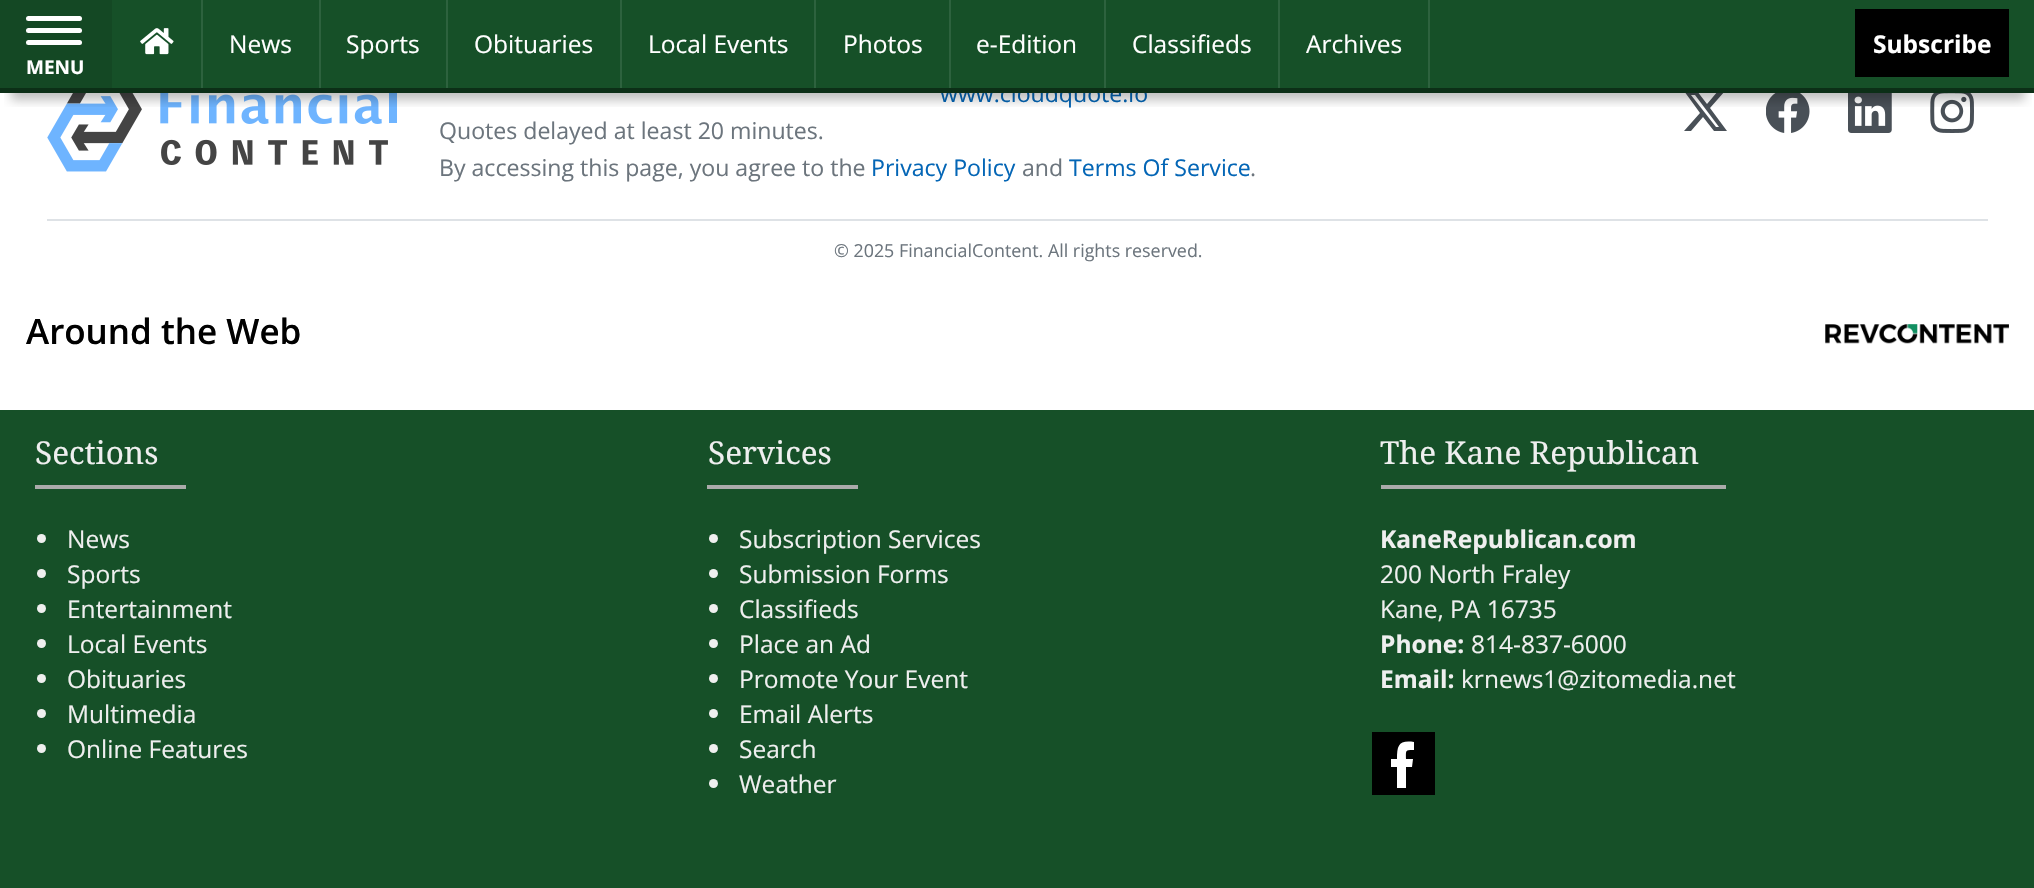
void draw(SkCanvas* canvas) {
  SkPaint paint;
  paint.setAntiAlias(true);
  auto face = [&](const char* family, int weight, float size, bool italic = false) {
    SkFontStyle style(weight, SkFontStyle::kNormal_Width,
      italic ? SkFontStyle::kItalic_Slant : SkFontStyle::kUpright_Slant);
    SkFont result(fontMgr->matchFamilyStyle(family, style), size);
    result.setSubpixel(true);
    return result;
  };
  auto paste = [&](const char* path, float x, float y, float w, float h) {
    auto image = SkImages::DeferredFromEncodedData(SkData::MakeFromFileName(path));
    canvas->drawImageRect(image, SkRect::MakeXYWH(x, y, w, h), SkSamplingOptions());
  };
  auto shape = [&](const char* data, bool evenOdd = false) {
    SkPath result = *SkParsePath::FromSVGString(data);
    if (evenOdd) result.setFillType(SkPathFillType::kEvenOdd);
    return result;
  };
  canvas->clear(0xffffffff);
  paste("img/2.png", 47, 93, 350, 79);
  paint.setColor(0xff495057);
  canvas->drawPath(shape("M1718 91H1725L1710 108L1727 131H1714L1703 117L1691 131H1684L1700 113L1684 91H1697L1707 104ZM1716 127H1719L1695 95H1691Z"), paint);
  paste("img/3.png", 1766, 93, 44, 40);
  paste("img/4.png", 1848, 93, 44, 40);
  paste("img/5.png", 1930, 93, 44, 40);
  paint.setColor(0xffdee2e6);
  canvas->drawRect(SkRect::MakeXYWH(47, 219, 1941, 2), paint);
  paste("img/6.png", 1825, 324, 184, 20);
  paint.setColor(0xff165028);
  canvas->drawRect(SkRect::MakeXYWH(0, 410, 2034, 478), paint);
  paint.setColor(0xffaaaaaa);
  canvas->drawRect(SkRect::MakeXYWH(35, 485, 151, 4), paint);
  paint.setColor(0xffefefef);
  canvas->drawCircle(41.5f, 538.5f, 4.5f, paint);
  canvas->drawCircle(41.5f, 573.5f, 4.5f, paint);
  canvas->drawCircle(41.5f, 608.5f, 4.5f, paint);
  canvas->drawCircle(41.5f, 643.5f, 4.5f, paint);
  canvas->drawCircle(41.5f, 678.5f, 4.5f, paint);
  canvas->drawCircle(41.5f, 713.5f, 4.5f, paint);
  canvas->drawCircle(41.5f, 748.5f, 4.5f, paint);
  paint.setColor(0xffaaaaaa);
  canvas->drawRect(SkRect::MakeXYWH(707, 485, 151, 4), paint);
  paint.setColor(0xffefefef);
  canvas->drawCircle(713.5f, 538.5f, 4.5f, paint);
  canvas->drawCircle(713.5f, 573.5f, 4.5f, paint);
  canvas->drawCircle(713.5f, 608.5f, 4.5f, paint);
  canvas->drawCircle(713.5f, 643.5f, 4.5f, paint);
  canvas->drawCircle(713.5f, 678.5f, 4.5f, paint);
  canvas->drawCircle(713.5f, 713.5f, 4.5f, paint);
  canvas->drawCircle(713.5f, 748.5f, 4.5f, paint);
  canvas->drawCircle(713.5f, 783.5f, 4.5f, paint);
  paint.setColor(0xffaaaaaa);
  canvas->drawRect(SkRect::MakeXYWH(1381, 485, 345, 4), paint);
  paint.setColor(0xff000000);
  canvas->drawRect(SkRect::MakeXYWH(1372, 732, 63, 63), paint);
  paint.setColor(0xffffffff);
  canvas->drawPath(shape("M1397 788V767H1391V759H1397C1397 745 1399 740 1414 742V750C1405 750 1406 750 1406 759H1413L1412 767H1406V788"), paint);
  auto f0 = face("Open Sans", 400, 23.1f);
  paint.setColor(0xff0466b6);
  canvas->drawString("www.cloudquote.io", 940, 102, f0, paint);
  paint.setColor(0xff165028);
  canvas->drawRect(SkRect::MakeXYWH(112, 0, 1922, 88), paint);
  canvas->save();
  canvas->clipRect(SkRect::MakeXYWH(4, 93, 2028, 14));
  paint.setColor(0x40000000);
  paint.setMaskFilter(SkMaskFilter::MakeBlur(kNormal_SkBlurStyle, 5));
  canvas->drawRect(SkRect::MakeXYWH(11, 28, 2014, 72), paint);
  paint.setMaskFilter(nullptr);
  canvas->restore();
  auto f1 = face("Open Sans", 400, 24.5f);
  paint.setColor(0xffffffff);
  canvas->drawString("Archives", 1306, 53, f1, paint);
  paint.setColor(0xff2d623e);
  canvas->drawRect(SkRect::MakeXYWH(1428, 0, 2, 88), paint);
  paint.setColor(0xffffffff);
  canvas->drawString("Classifieds", 1132, 53, f1, paint);
  paint.setColor(0xff2d623e);
  canvas->drawRect(SkRect::MakeXYWH(1278, 0, 2, 88), paint);
  paint.setColor(0xffffffff);
  canvas->drawString("e-Edition", 976, 53, f1, paint);
  paint.setColor(0xff2d623e);
  canvas->drawRect(SkRect::MakeXYWH(1104, 0, 2, 88), paint);
  paint.setColor(0xffffffff);
  canvas->drawString("Photos", 843, 53, f1, paint);
  paint.setColor(0xff2d623e);
  canvas->drawRect(SkRect::MakeXYWH(949, 0, 2, 88), paint);
  paint.setColor(0xffffffff);
  canvas->drawString("Local Events", 648, 53, f1, paint);
  paint.setColor(0xff2d623e);
  canvas->drawRect(SkRect::MakeXYWH(814, 0, 2, 88), paint);
  paint.setColor(0xffffffff);
  canvas->drawString("Obituaries", 474, 53, f1, paint);
  paint.setColor(0xff2d623e);
  canvas->drawRect(SkRect::MakeXYWH(620, 0, 2, 88), paint);
  paint.setColor(0xffffffff);
  canvas->drawString("Sports", 346, 53, f1, paint);
  paint.setColor(0xff2d623e);
  canvas->drawRect(SkRect::MakeXYWH(446, 0, 2, 88), paint);
  paint.setColor(0xffffffff);
  canvas->drawString("News", 229, 53, f1, paint);
  paint.setColor(0xff2d623e);
  canvas->drawRect(SkRect::MakeXYWH(319, 0, 2, 88), paint);
  paste("img/1.png", 140, 28, 34, 27);
  canvas->drawRect(SkRect::MakeXYWH(201, 0, 2, 88), paint);
  paint.setColor(0xff000000);
  canvas->drawRect(SkRect::MakeXYWH(1855, 9, 154, 68), paint);
  auto f2 = face("Open Sans", 700, 24.5f);
  paint.setColor(0xffffffff);
  canvas->drawString("Subscribe", 1873, 53, f2, paint);
  paint.setColor(0xff144824);
  canvas->drawRect(SkRect::MakeXYWH(0, 0, 112, 88), paint);
  auto f3 = face("Open Sans", 700, 19);
  paint.setColor(0xffffffff);
  canvas->drawString("MENU", 26, 74, f3, paint);
  canvas->drawRoundRect(SkRect::MakeXYWH(26, 40, 56, 5), 2.5f, 2.5f, paint);
  canvas->drawRoundRect(SkRect::MakeXYWH(26, 28, 56, 5), 2.5f, 2.5f, paint);
  canvas->drawRoundRect(SkRect::MakeXYWH(26, 16, 56, 5), 2.5f, 2.5f, paint);
  paint.setColor(0xff0c2f17);
  canvas->drawRect(SkRect::MakeXYWH(0, 88, 2034, 5), paint);
  paint.setColor(0xff6c757d);
  canvas->drawString("Quotes delayed at least 20 minutes.", 439, 139, f0, paint);
  canvas->drawString("By accessing this page, you agree to the", 439, 176, f0, paint);
  paint.setColor(0xff0466b6);
  canvas->drawString("Privacy Policy", 871, 176, f0, paint);
  paint.setColor(0xff6c757d);
  canvas->drawString("and", 1022, 176, f0, paint);
  paint.setColor(0xff0466b6);
  canvas->drawString("Terms Of Service", 1069, 176, f0, paint);
  paint.setColor(0xff6c757d);
  canvas->drawString(".", 1250, 176, f0, paint);
  auto f4 = face("Open Sans", 400, 17.85f);
  canvas->drawString("© 2025 FinancialContent. All rights reserved.", 834, 257, f4, paint);
  auto f5 = face("Open Sans", 600, 35);
  paint.setColor(0xff000000);
  canvas->drawString("Around the Web", 26, 344, f5, paint);
  auto f6 = face("Droid Serif", 400, 31.5f);
  paint.setColor(0xffefefef);
  canvas->drawString("Sections", 35, 464, f6, paint);
  {
    const struct { const char* s; float x, y; } items[] = {
      {"News", 67, 548},
      {"Sports", 67, 583},
      {"Entertainment", 67, 618},
      {"Local Events", 67, 653},
      {"Obituaries", 67, 688},
      {"Multimedia", 67, 723},
      {"Online Features", 67, 758},
    };
    for (auto [s, x, y] : items) {
      canvas->drawString(s, x, y, f1, paint);
    }
  }
  canvas->drawString("Services", 708, 464, f6, paint);
  {
    const struct { const char* s; float x, y; } items[] = {
      {"Subscription Services", 739, 548},
      {"Submission Forms", 739, 583},
      {"Classifieds", 739, 618},
      {"Place an Ad", 739, 653},
      {"Promote Your Event", 739, 688},
      {"Email Alerts", 739, 723},
      {"Search", 739, 758},
      {"Weather", 739, 793},
    };
    for (auto [s, x, y] : items) {
      canvas->drawString(s, x, y, f1, paint);
    }
  }
  canvas->drawString("The Kane Republican", 1380, 464, f6, paint);
  canvas->drawString("KaneRepublican.com", 1380, 548, f2, paint);
  canvas->drawString("200 North Fraley", 1380, 583, f1, paint);
  canvas->drawString("Kane, PA 16735", 1380, 618, f1, paint);
  canvas->drawString("Phone:", 1380, 653, f2, paint);
  canvas->drawString("814-837-6000", 1471, 653, f1, paint);
  canvas->drawString("Email:", 1380, 688, f2, paint);
  canvas->drawString("krnews1@zitomedia.net", 1461, 688, f1, paint);
}
